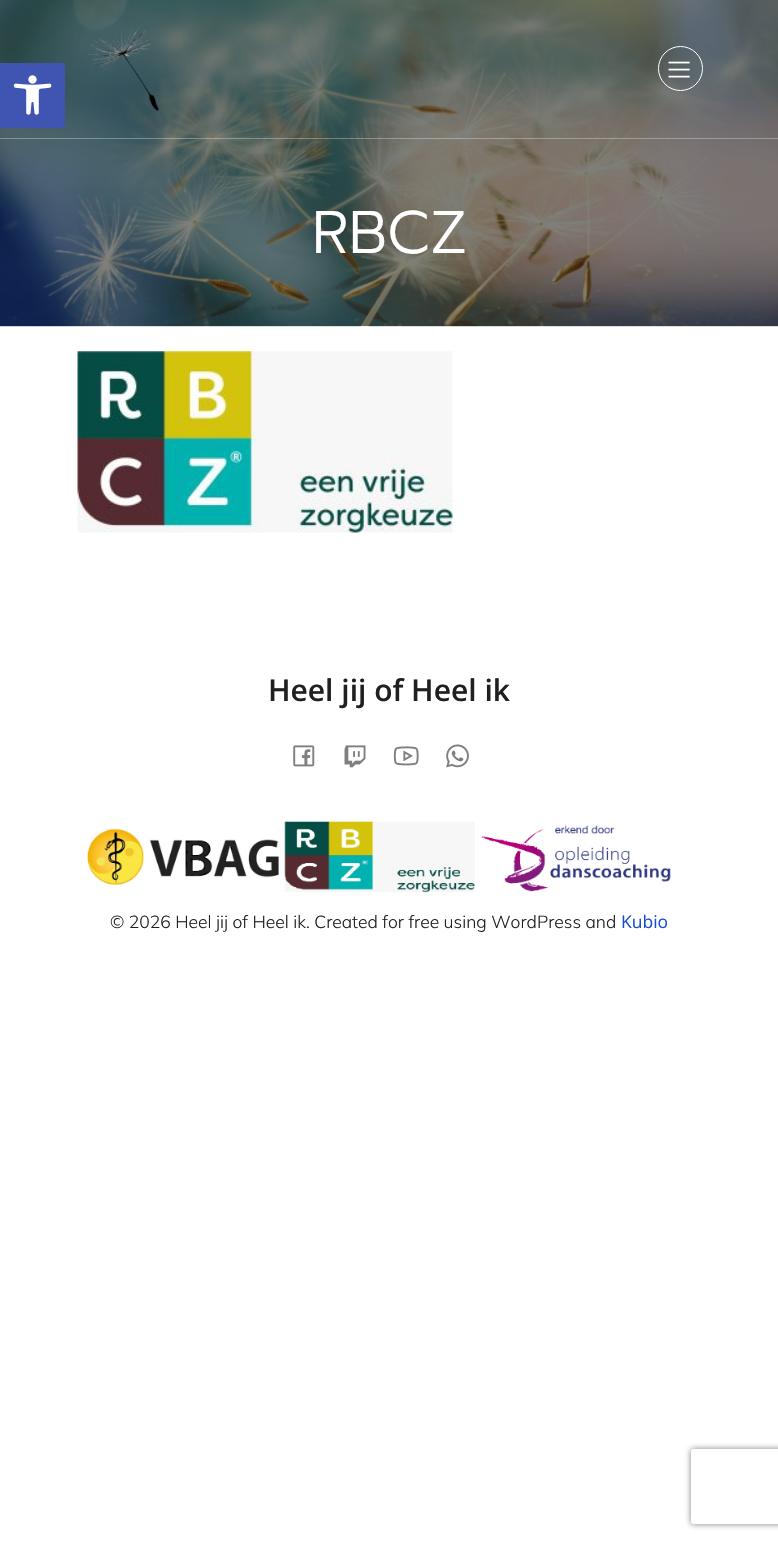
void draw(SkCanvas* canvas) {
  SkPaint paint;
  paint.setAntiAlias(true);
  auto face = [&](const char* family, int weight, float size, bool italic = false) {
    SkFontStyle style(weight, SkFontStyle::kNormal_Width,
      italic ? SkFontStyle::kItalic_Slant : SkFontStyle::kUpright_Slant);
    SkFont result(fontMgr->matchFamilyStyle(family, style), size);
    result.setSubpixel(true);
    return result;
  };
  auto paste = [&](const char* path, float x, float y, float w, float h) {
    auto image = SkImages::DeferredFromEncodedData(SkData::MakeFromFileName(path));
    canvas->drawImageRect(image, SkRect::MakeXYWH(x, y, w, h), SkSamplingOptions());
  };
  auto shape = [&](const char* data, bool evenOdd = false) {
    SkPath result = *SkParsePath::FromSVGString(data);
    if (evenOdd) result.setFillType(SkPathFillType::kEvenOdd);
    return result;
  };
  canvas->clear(0xffffffff);
  paste("img/4.png", 0, 0, 778, 327);
  paint.setColor(0xff4054b2);
  canvas->drawRect(SkRect::MakeXYWH(0, 63, 65, 65), paint);
  paste("img/1.png", 13, 75, 39, 40);
  paint.setColor(0x4dffffff);
  canvas->drawRect(SkRect::MakeXYWH(0, 138, 778, 1), paint);
  paste("img/2.png", 88, 27, 71, 84);
  paint.setStroke(true);
  paint.setStrokeWidth(1);
  paint.setColor(0xffffffff);
  canvas->drawCircle(680.5f, 68.5f, 22, paint);
  paste("img/3.png", 668, 61, 22, 17);
  paste("img/5.png", 77, 351, 376, 182);
  paste("img/6.png", 293, 745, 22, 22);
  paste("img/7.png", 344, 745, 22, 23);
  paste("img/8.png", 393, 746, 26, 20);
  paste("img/9.png", 446, 744, 23, 24);
  paste("img/10.png", 86, 821, 585, 72);
  canvas->save();
  canvas->clipPath(shape("M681 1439H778V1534H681ZM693.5 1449H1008.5C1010 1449 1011 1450 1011 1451.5V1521.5C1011 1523 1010 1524 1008.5 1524H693.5C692 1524 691 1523 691 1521.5V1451.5C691 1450 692 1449 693.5 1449Z", true), true);
  paint.setStroke(false);
  paint.setColor(0xff808080);
  paint.setMaskFilter(SkMaskFilter::MakeBlur(kNormal_SkBlurStyle, 3));
  canvas->drawRoundRect(SkRect::MakeXYWH(691, 1449, 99, 75), 2.5f, 2.5f, paint);
  paint.setMaskFilter(nullptr);
  canvas->restore();
  auto f0 = face("Prompt", 300, 60);
  paint.setColor(0xffffffff);
  canvas->drawString("RBCZ", 312, 253, f0, paint);
  auto f1 = face("Open Sans", 600, 30);
  paint.setColor(0xff202022);
  canvas->drawString("Heel jij of Heel ik", 268, 701, f1, paint);
  auto f2 = face("Mulish", 300, 17.5f);
  canvas->drawString("© 2026 Heel jij of Heel ik. Created for free using WordPress and", 110, 928, f2, paint);
  auto f3 = face("Open Sans", 400, 17.5f);
  paint.setColor(0xff144fd1);
  canvas->drawString("Kubio", 621, 928, f3, paint);
}
